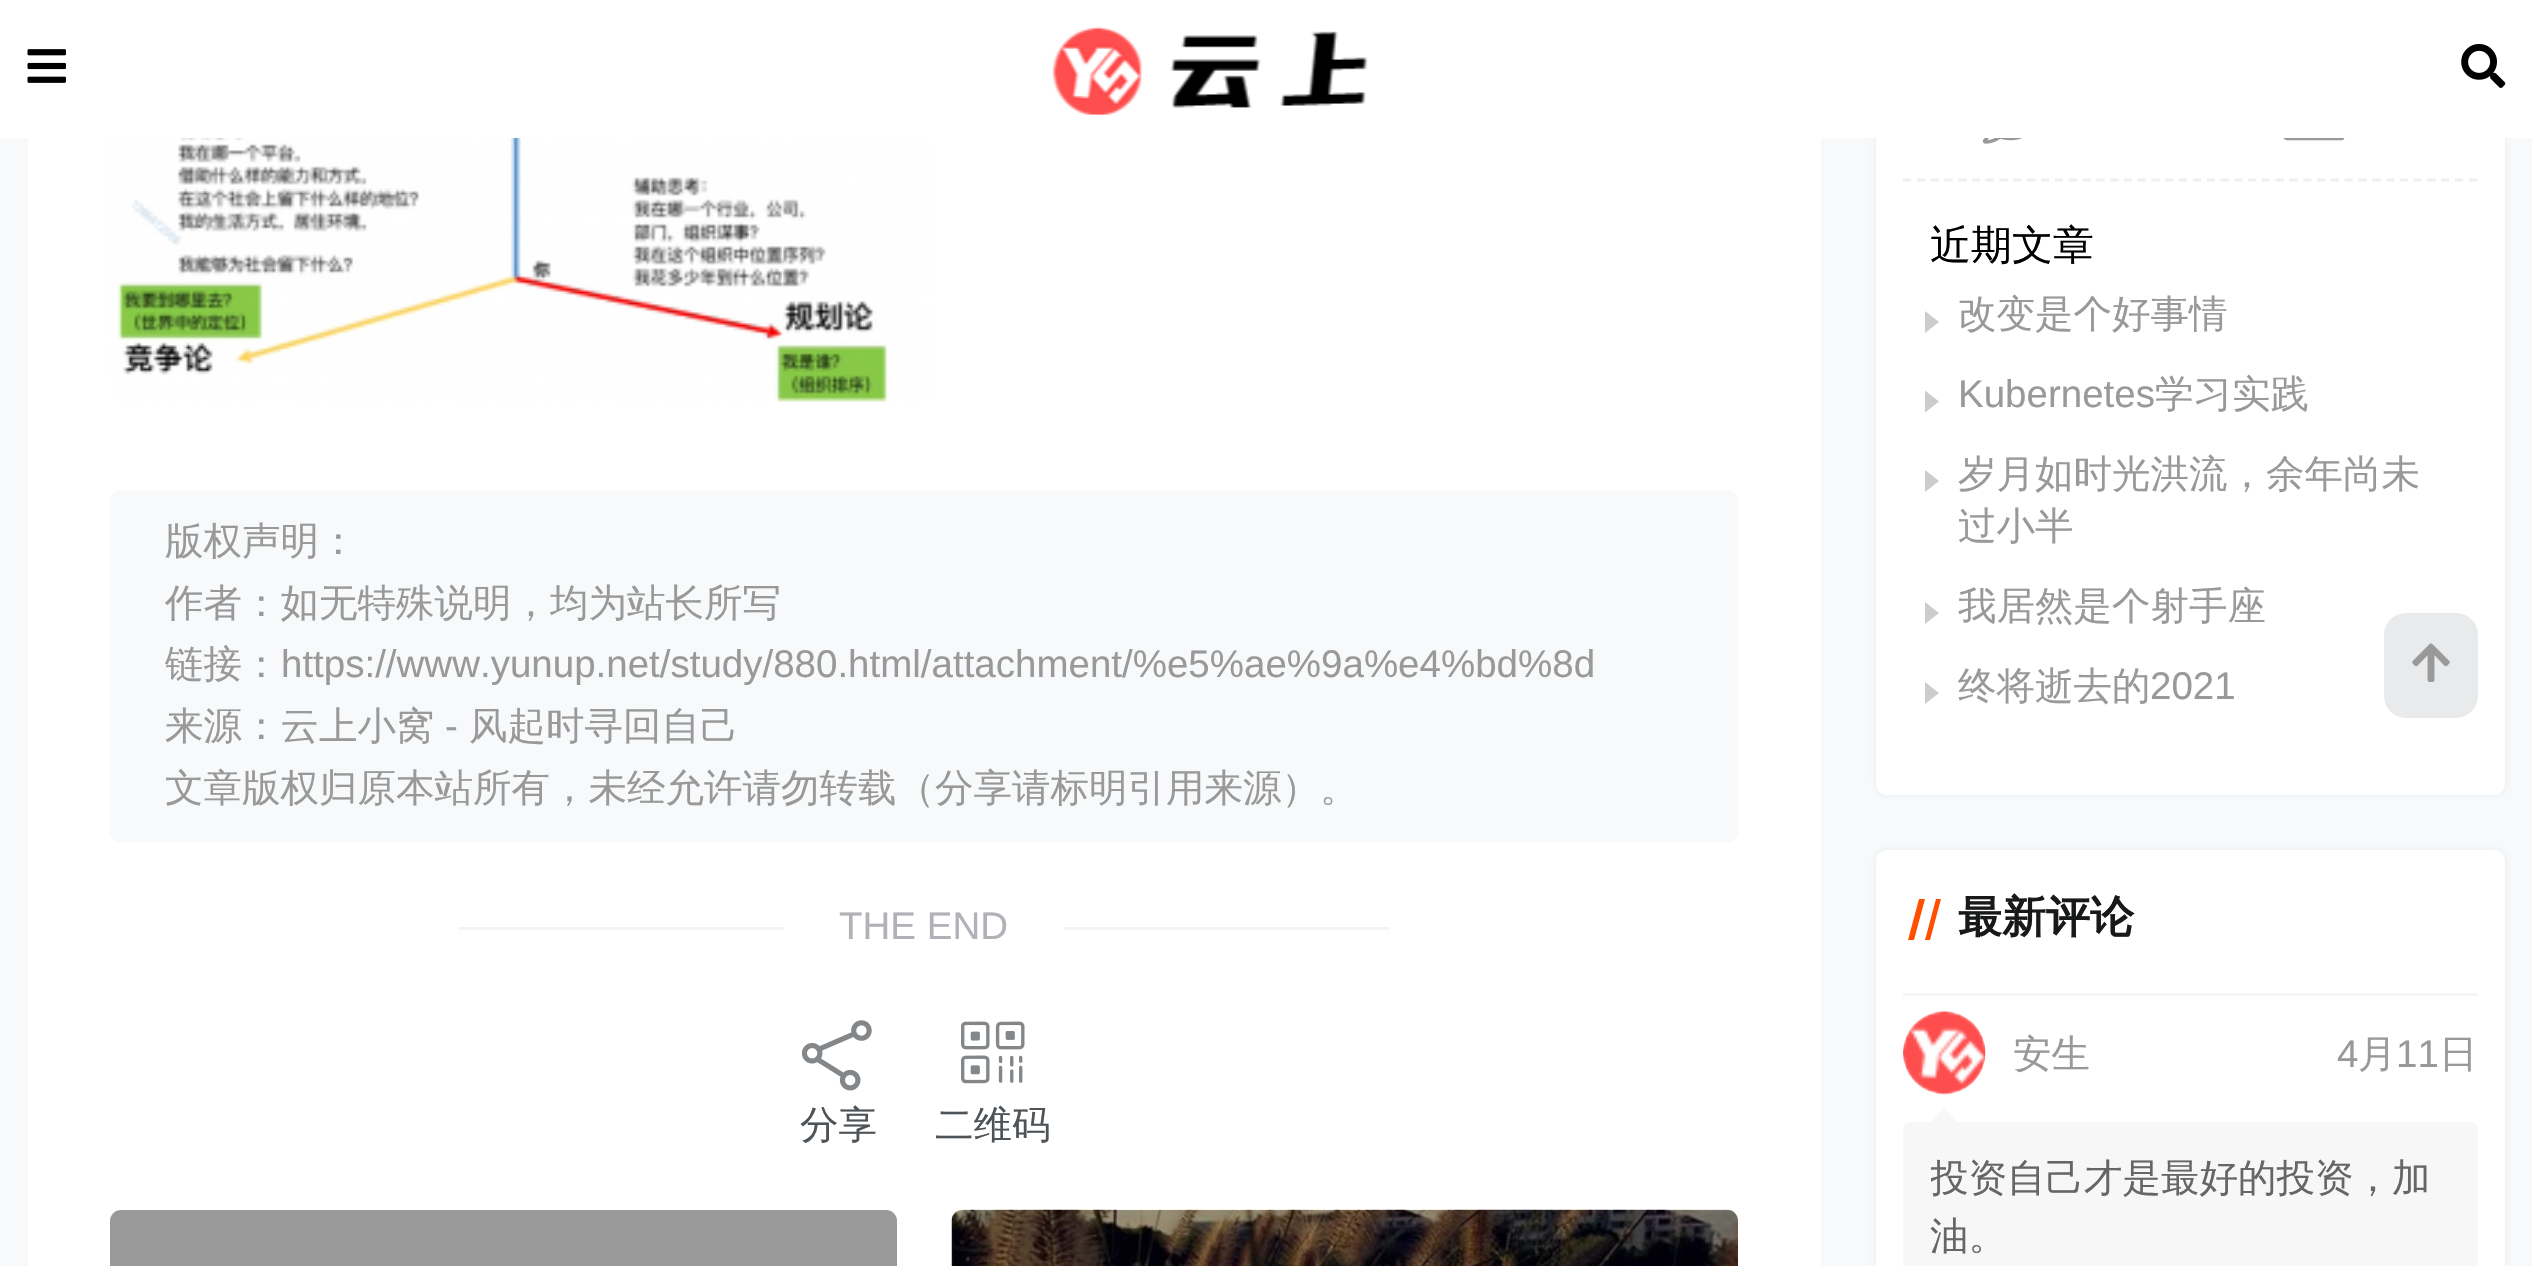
void draw(SkCanvas* canvas) {
  SkPaint paint;
  paint.setAntiAlias(true);
  auto face = [&](const char* family, int weight, float size, bool italic = false) {
    SkFontStyle style(weight, SkFontStyle::kNormal_Width,
      italic ? SkFontStyle::kItalic_Slant : SkFontStyle::kUpright_Slant);
    SkFont result(fontMgr->matchFamilyStyle(family, style), size);
    result.setSubpixel(true);
    return result;
  };
  auto paste = [&](const char* path, float x, float y, float w, float h) {
    auto image = SkImages::DeferredFromEncodedData(SkData::MakeFromFileName(path));
    canvas->drawImageRect(image, SkRect::MakeXYWH(x, y, w, h), SkSamplingOptions());
  };
  auto shape = [&](const char* data, bool evenOdd = false) {
    SkPath result = *SkParsePath::FromSVGString(data);
    if (evenOdd) result.setFillType(SkPathFillType::kEvenOdd);
    return result;
  };
  canvas->clear(0xfff7f9fa);
  paint.setColor(0x1a627c99);
  paint.setMaskFilter(SkMaskFilter::MakeBlur(kNormal_SkBlurStyle, 3));
  canvas->drawRoundRect(SkRect::MakeXYWH(1876, -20, 629, 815), 11, 11, paint);
  paint.setMaskFilter(nullptr);
  paint.setColor(0xffffffff);
  canvas->drawRoundRect(SkRect::MakeXYWH(1876, -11, 629, 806), 11, 11, paint);
  canvas->drawRect(SkRect::MakeXYWH(0, 0, 2532, 138), paint);
  paste("img/1.png", 27, 49, 39, 34);
  paste("img/2.png", 1051, 26, 317, 89);
  paste("img/3.png", 2461, 44, 45, 44);
  canvas->drawRect(SkRect::MakeXYWH(28, 138, 1793, 1128), paint);
  paste("img/4.png", 110, 138, 825, 264);
  paint.setColor(0xfff7f9fa);
  canvas->drawRoundRect(SkRect::MakeXYWH(110, 490, 1628, 352), 11, 11, paint);
  paint.setColor(0xfff3f3f3);
  canvas->drawRect(SkRect::MakeXYWH(459, 927, 325, 3), paint);
  canvas->drawRect(SkRect::MakeXYWH(1064, 927, 325, 3), paint);
  paste("img/5.png", 801, 1020, 71, 71);
  paste("img/6.png", 961, 1021, 64, 63);
  paint.setColor(0xff999999);
  canvas->drawRoundRect(SkRect::MakeXYWH(110, 1210, 787, 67), 11, 11, paint);
  paste("img/7.png", 951, 1209, 787, 57);
  paint.setColor(0x66000000);
  canvas->drawRoundRect(SkRect::MakeXYWH(952, 1210, 786, 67), 11, 11, paint);
  paste("img/8.png", 1982, 138, 41, 6);
  paste("img/9.png", 2283, 138, 62, 3);
  paint.setStroke(true);
  paint.setStrokeWidth(2.8f);
  paint.setColor(0xffefefef);
  paint.setPathEffect(SkDashPathEffect::Make({{8.25f, 5.55f}}, 0));
  canvas->drawPath(shape("M1903 180H2478"), paint);
  paint.setPathEffect(nullptr);
  paint.setStroke(false);
  paint.setColor(0xffcccccc);
  canvas->drawPath(shape("M1925 333V311L1939 322Z"), paint);
  canvas->drawPath(shape("M1925 412.5V390.5L1939 401.5Z"), paint);
  canvas->drawPath(shape("M1925 492V470L1939 481Z"), paint);
  canvas->drawPath(shape("M1925 624V602L1939 613Z"), paint);
  canvas->drawPath(shape("M1925 704V682L1939 693Z"), paint);
  paint.setColor(0x1a627c99);
  paint.setMaskFilter(SkMaskFilter::MakeBlur(kNormal_SkBlurStyle, 3));
  canvas->drawRoundRect(SkRect::MakeXYWH(1876, 850, 629, 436), 11, 11, paint);
  paint.setMaskFilter(nullptr);
  paint.setColor(0xffffffff);
  canvas->drawRoundRect(SkRect::MakeXYWH(1876, 850, 629, 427), 11, 11, paint);
  paint.setColor(0xfff5f6f7);
  canvas->drawRect(SkRect::MakeXYWH(1903, 993, 575, 3), paint);
  paint.setColor(0xffff5000);
  canvas->drawPath(shape("M1919 899H1925L1914 940H1908ZM1936 899H1941L1930 940H1925Z"), paint);
  paste("img/10.png", 1903, 1011, 83, 84);
  paint.setColor(0xfff7f7f7);
  canvas->drawRoundRect(SkRect::MakeXYWH(1903, 1122, 575, 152), 8, 8, paint);
  canvas->drawPath(shape("M1958 1122H1930.5L1944 1108Z"), paint);
  paint.setColor(0xffe8eaeb);
  canvas->drawRoundRect(SkRect::MakeXYWH(2384, 613, 94, 105), 22, 22, paint);
  paste("img/11.png", 2412, 643, 38, 39);
  auto f0 = face("WenQuanYi Zen Hei", 500, 38.5f);
  paint.setColor(0xff999999);
  {
    const struct { const char* s; float x, y; } items[] = {
      {"版权声明：", 165, 554},
      {"作者：如无特殊说明，均为站长所写", 165, 616},
      {"链接：", 165, 677},
    };
    for (auto [s, x, y] : items) {
      canvas->drawString(s, x, y, f0, paint);
    }
  }
  auto f1 = face("Liberation Sans", 400, 38.5f);
  canvas->drawString("https://www.yunup.net/study/880.html/attachment/%e5%ae%9a%e4%bd%8d", 281, 677, f1, paint);
  canvas->drawString("来源：云上小窝", 165, 739, f0, paint);
  canvas->drawString("-", 445, 739, f1, paint);
  canvas->drawString("风起时寻回自己", 469, 739, f0, paint);
  canvas->drawString("文章版权归原本站所有，未经允许请勿转载（分享请标明引用来源）。", 165, 801, f0, paint);
  paint.setColor(0xffb1b1b8);
  canvas->drawString("THE END", 839, 939, f1, paint);
  paint.setColor(0xff4e5358);
  canvas->drawString("分享", 800, 1138, f0, paint);
  canvas->drawString("二维码", 935, 1138, f0, paint);
  auto f2 = face("WenQuanYi Zen Hei", 500, 41);
  paint.setColor(0xff000000);
  canvas->drawString("近期文章", 1930, 259, f2, paint);
  paint.setColor(0xff999999);
  canvas->drawString("改变是个好事情", 1958, 327, f0, paint);
  canvas->drawString("Kubernetes", 1958, 407, f1, paint);
  {
    const struct { const char* s; float x, y; } items[] = {
      {"学习实践", 2155, 407},
      {"岁月如时光洪流，余年尚未", 1958, 487},
      {"过小半", 1958, 539},
      {"我居然是个射手座", 1958, 619},
      {"终将逝去的", 1958, 699},
    };
    for (auto [s, x, y] : items) {
      canvas->drawString(s, x, y, f0, paint);
    }
  }
  canvas->drawString("2021", 2150, 699, f1, paint);
  auto f3 = face("WenQuanYi Zen Hei", 700, 44);
  paint.setColor(0xff18191a);
  canvas->drawString("最新评论", 1958, 932, f3, paint);
  paint.setColor(0xff999999);
  canvas->drawString("安生", 2013, 1067, f0, paint);
  canvas->drawString("4", 2337, 1067, f1, paint);
  canvas->drawString("月", 2358, 1067, f0, paint);
  canvas->drawString("11", 2396, 1067, f1, paint);
  canvas->drawString("日", 2439, 1067, f0, paint);
  canvas->save();
  canvas->clipRect(SkRect::MakeXYWH(1931, 1150, 519, 115));
  paint.setColor(0xff666666);
  canvas->drawString("投资自己才是最好的投资，加", 1930, 1191, f0, paint);
  canvas->restore();
  canvas->drawString("油。", 1930, 1249, f0, paint);
}
